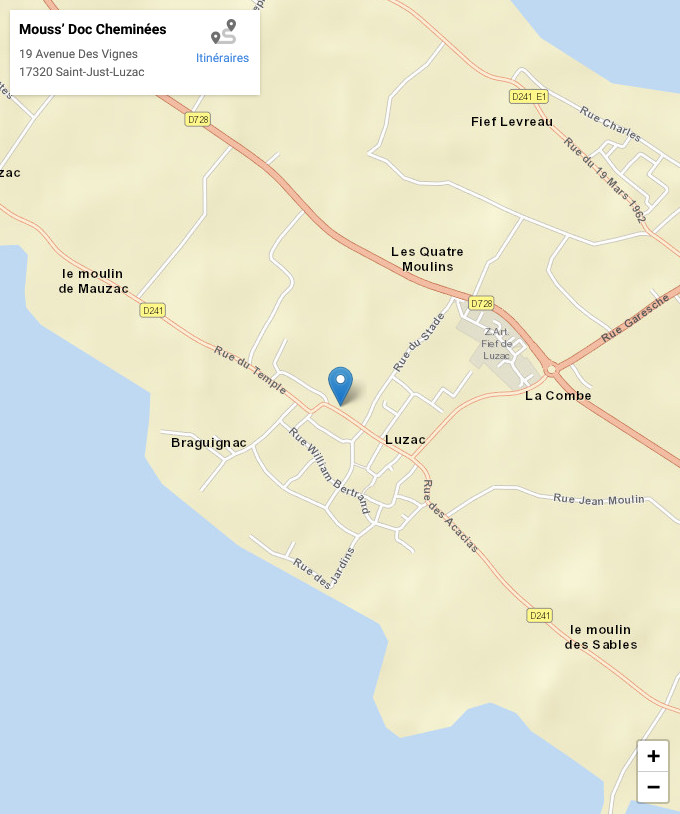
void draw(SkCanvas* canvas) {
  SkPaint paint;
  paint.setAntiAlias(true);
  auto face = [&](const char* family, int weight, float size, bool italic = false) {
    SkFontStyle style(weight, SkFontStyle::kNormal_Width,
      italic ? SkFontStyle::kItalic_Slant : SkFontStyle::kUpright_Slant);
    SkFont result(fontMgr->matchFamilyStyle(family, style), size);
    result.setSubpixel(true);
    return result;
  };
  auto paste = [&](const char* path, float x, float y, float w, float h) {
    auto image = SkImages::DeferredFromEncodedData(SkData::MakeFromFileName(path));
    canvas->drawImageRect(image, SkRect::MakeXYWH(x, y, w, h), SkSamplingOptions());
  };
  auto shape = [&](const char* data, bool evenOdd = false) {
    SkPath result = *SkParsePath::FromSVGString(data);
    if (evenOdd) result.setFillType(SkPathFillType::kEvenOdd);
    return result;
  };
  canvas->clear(0xffffffff);
  paste("img/1.png", 0, 0, 117, 147);
  paste("img/2.png", 117, 0, 256, 147);
  paste("img/3.png", 373, 0, 256, 147);
  paste("img/4.png", 629, 0, 51, 147);
  paste("img/5.png", 0, 147, 117, 256);
  paste("img/6.png", 117, 147, 256, 256);
  paste("img/7.png", 373, 147, 256, 256);
  paste("img/8.png", 629, 147, 51, 256);
  paint.setColor(0xffbfd9f2);
  canvas->drawRect(SkRect::MakeXYWH(0, 403, 117, 256), paint);
  paste("img/9.png", 117, 403, 256, 256);
  paste("img/10.png", 373, 403, 256, 256);
  paste("img/11.png", 629, 403, 51, 256);
  canvas->drawRect(SkRect::MakeXYWH(0, 659, 373, 155), paint);
  paste("img/12.png", 373, 659, 256, 155);
  paste("img/13.png", 629, 659, 51, 155);
  paste("img/15.png", 338, 379, 29, 28);
  paste("img/14.png", 328, 366, 25, 41);
  paint.setColor(0x4d000000);
  paint.setMaskFilter(SkMaskFilter::MakeBlur(kNormal_SkBlurStyle, 2));
  canvas->drawRect(SkRect::MakeXYWH(11, 12, 248, 83), paint);
  paint.setMaskFilter(nullptr);
  paint.setColor(0xffffffff);
  canvas->drawRect(SkRect::MakeXYWH(10, 10, 250, 85), paint);
  paste("img/16.png", 211, 19, 25, 25);
  paint.setStroke(true);
  paint.setStrokeWidth(2);
  paint.setColor(0x33000000);
  canvas->drawRoundRect(SkRect::MakeXYWH(637, 740, 32, 63), 3, 3, paint);
  paint.setStroke(false);
  paint.setColor(0xffffffff);
  canvas->drawPath(shape("M640 741H666C667 741 668 742 668 743V772H638V743C638 742 639 741 640 741Z"), paint);
  paint.setColor(0xffcccccc);
  canvas->drawRect(SkRect::MakeXYWH(638, 771, 30, 1), paint);
  paint.setColor(0xffffffff);
  canvas->drawPath(shape("M638 772H668V800C668 801 667 802 666 802H640C639 802 638 801 638 800Z"), paint);
  auto f0 = face("Roboto", 700, 14);
  paint.setColor(0xff000000);
  canvas->drawString("Mouss’ Doc Cheminées", 19, 34, f0, paint);
  auto f1 = face("Roboto", 400, 12);
  paint.setColor(0xff5b5b5b);
  canvas->drawString("19 Avenue Des Vignes", 19, 58, f1, paint);
  canvas->drawString("17320 Saint-Just-Luzac", 19, 76, f1, paint);
  paint.setColor(0xff3a84df);
  canvas->drawString("Itinéraires", 196, 62, f1, paint);
  auto f2 = face("DejaVu Sans Mono", 700, 22);
  paint.setColor(0xff000000);
  canvas->drawString("+", 647, 763, f2, paint);
  canvas->drawString("−", 647, 794, f2, paint);
}
